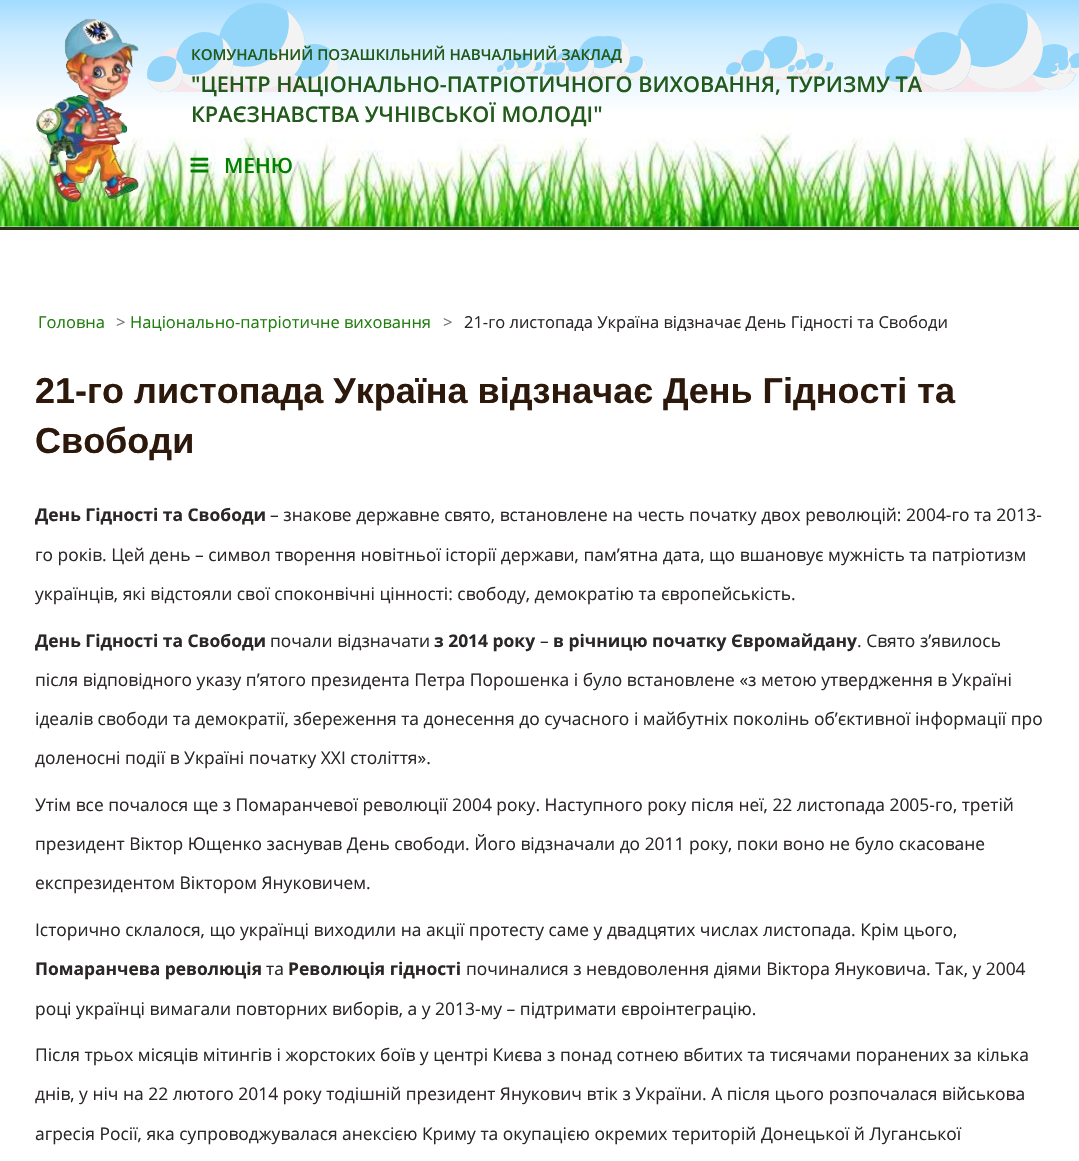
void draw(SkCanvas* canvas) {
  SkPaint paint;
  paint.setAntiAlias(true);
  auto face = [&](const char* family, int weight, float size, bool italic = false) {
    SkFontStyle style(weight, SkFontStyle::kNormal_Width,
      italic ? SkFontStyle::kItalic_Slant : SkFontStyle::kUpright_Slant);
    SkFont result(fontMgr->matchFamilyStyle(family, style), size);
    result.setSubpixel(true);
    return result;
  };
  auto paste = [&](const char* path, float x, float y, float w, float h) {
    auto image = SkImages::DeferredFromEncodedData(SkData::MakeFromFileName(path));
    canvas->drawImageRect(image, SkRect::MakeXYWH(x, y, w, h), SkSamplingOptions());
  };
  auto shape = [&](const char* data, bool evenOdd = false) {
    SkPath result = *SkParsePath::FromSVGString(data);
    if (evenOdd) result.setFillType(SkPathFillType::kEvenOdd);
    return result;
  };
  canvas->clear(0xffffffff);
  paste("img/1.png", 0, 226, 1079, 1);
  paste("img/2.png", 0, 0, 1079, 227);
  paint.setColor(0xff2d2e18);
  canvas->drawRect(SkRect::MakeXYWH(0, 227, 1079, 3), paint);
  paint.setColor(0xfff7e7eb);
  canvas->drawRoundRect(SkRect::MakeXYWH(156, 47, 162, 45), 22.5f, 22.5f, paint);
  paint.setColor(0xff93d6f9);
  canvas->drawRoundRect(SkRect::MakeXYWH(291, 44, 47, 46), 23, 23, paint);
  paint.setColor(0xfff3f3f3);
  canvas->drawPath(shape("M292 73C299 100 341 93 338 64C337 58 334 53 330 49C335 72 309 87 292 73Z"), paint);
  paint.setColor(0xff93d6f9);
  canvas->drawRoundRect(SkRect::MakeXYWH(218, 3, 87, 86), 43, 43, paint);
  paint.setColor(0xfff3f3f3);
  canvas->drawPath(shape("M220 58C225 76 242 89 261 89H262C286 89 305 70 305 46C305 32 298 19 287 11C299 51 253 83 220 58Z"), paint);
  paint.setColor(0xff93d6f9);
  canvas->drawRoundRect(SkRect::MakeXYWH(176, 32, 57, 58), 28.5f, 28.5f, paint);
  paint.setColor(0xfff3f3f3);
  canvas->drawPath(shape("M177 70C179 77 184 83 191 87C197 90 204 91 210 89C235 85 241 52 222 38C230 64 199 85 177 70Z"), paint);
  paint.setColor(0xff93d6f9);
  canvas->drawCircle(165, 74, 18, paint);
  paint.setColor(0xfff3f3f3);
  canvas->drawPath(shape("M147.5 78.5C149.5 86 156.5 92 165 92C175 92 183 84 183 74C183 68 180 63 176 59.5C178 70 172.5 82 159 82C154 82 150.5 80.5 147.5 78.5Z"), paint);
  paint.setColor(0xfff7e7eb);
  canvas->drawRoundRect(SkRect::MakeXYWH(546, 57, 81, 23), 11.5f, 11.5f, paint);
  paint.setColor(0xfff3f3f3);
  canvas->drawPath(shape("M614.5 70.5C615 74 617 77 620 78.5C633.5 86 645 66.5 633 58C636 69.5 623 77.5 614.5 70.5Z"), paint);
  paint.setColor(0xff93d6f9);
  canvas->drawCircle(599, 57, 21, paint);
  canvas->drawCircle(570, 65, 15, paint);
  canvas->drawCircle(551, 71, 9, paint);
  paint.setColor(0xfff3f3f3);
  canvas->drawPath(shape("M542.5 73C543 75.5 544.5 77.5 546.5 79C556.5 84.5 565.5 69.5 556 63.5C558 72 549 78.5 542.5 73Z"), paint);
  paint.setColor(0xfff7e7eb);
  canvas->drawRoundRect(SkRect::MakeXYWH(894, 47, 162, 45), 22.5f, 22.5f, paint);
  paint.setColor(0xff93d6f9);
  canvas->drawCircle(1054, 67, 23, paint);
  paint.setColor(0xfff3f3f3);
  canvas->drawPath(shape("M1032 74C1034 80 1038 85 1043 87C1069 101 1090 64 1067 48C1073 70 1050 86 1032 74Z"), paint);
  paint.setColor(0xff93d6f9);
  canvas->drawRoundRect(SkRect::MakeXYWH(956, 3, 87, 86), 43, 43, paint);
  paint.setColor(0xfff3f3f3);
  canvas->drawPath(shape("M957 57C962 76 979 89 999 89H1000C1024 89 1043 70 1043 46C1043 32 1036 20 1026 12C1038 53 990 84 957 57Z"), paint);
  paint.setColor(0xff93d6f9);
  canvas->drawRoundRect(SkRect::MakeXYWH(914, 32, 57, 58), 28.5f, 28.5f, paint);
  paint.setColor(0xfff3f3f3);
  canvas->drawPath(shape("M915 69C917 76 922 83 929 86C935 90 942 91 948 89C972 85 979 53 960 38C967 65 937 86 915 69Z"), paint);
  paint.setColor(0xff93d6f9);
  canvas->drawCircle(903, 74, 18, paint);
  paint.setColor(0xfff3f3f3);
  canvas->drawPath(shape("M885.5 78C886.5 82.5 889.5 87 894 89.5C913 100.5 931 74 914.5 60.5C916.5 70.5 910.5 82 897 82C892 82 888 80.5 885.5 78Z"), paint);
  paint.setColor(0xfff7e7eb);
  canvas->drawRoundRect(SkRect::MakeXYWH(555, 57, 81, 23), 11.5f, 11.5f, paint);
  paint.setColor(0xff93d6f9);
  canvas->drawRoundRect(SkRect::MakeXYWH(624, 56, 23, 24), 11.5f, 11.5f, paint);
  paint.setColor(0xfff3f3f3);
  canvas->drawPath(shape("M624.5 71C625 74 627 77 630 78.5C643 86 653.5 67 642.5 58.5C645.5 69.5 633 77 624.5 71Z"), paint);
  paint.setColor(0xff93d6f9);
  canvas->drawRoundRect(SkRect::MakeXYWH(587, 36, 43, 42), 21, 21, paint);
  paint.setColor(0xfff3f3f3);
  canvas->drawPath(shape("M588 64C593 77 609 82 621 74C633 66 633 48 621 40C627 60 605 76 588 64Z"), paint);
  paint.setColor(0xff93d6f9);
  canvas->drawRoundRect(SkRect::MakeXYWH(566, 50, 28, 30), 14, 14, paint);
  paint.setColor(0xfff3f3f3);
  canvas->drawPath(shape("M566.5 69.5C567.5 73 570 76.5 573 78.5C576 80 579.5 80.5 583 79.5C595 77.5 598 60 588.5 53C591 61.5 586.5 72 575 72C571.5 72 568.5 71 566.5 69.5Z"), paint);
  paint.setColor(0xff93d6f9);
  canvas->drawCircle(560, 71, 9, paint);
  paint.setColor(0xfff3f3f3);
  canvas->drawPath(shape("M551.5 73.5C552 76 553.5 78 556 79C566 84.5 574.5 69 564.5 63.5C567 71.5 558 78.5 551.5 73.5Z"), paint);
  paint.setColor(0xfff7e7eb);
  canvas->drawRoundRect(SkRect::MakeXYWH(731, 57, 81, 23), 11.5f, 11.5f, paint);
  paint.setColor(0xff93d6f9);
  canvas->drawCircle(810, 68, 12, paint);
  paint.setColor(0xfff3f3f3);
  canvas->drawPath(shape("M798 70C799 73.5 801 76.5 804 78.5C816.5 86 828.5 68 817.5 59C820.5 70.5 806 77.5 798 70Z"), paint);
  paint.setColor(0xff93d6f9);
  canvas->drawRoundRect(SkRect::MakeXYWH(762, 36, 44, 42), 21, 21, paint);
  paint.setColor(0xfff3f3f3);
  canvas->drawPath(shape("M763 64C772 89 812 78 805 51C804 46 800 42 796 39C803 60 780 77 763 64Z"), paint);
  paint.setColor(0xff93d6f9);
  canvas->drawRoundRect(SkRect::MakeXYWH(741, 50, 29, 30), 14.5f, 14.5f, paint);
  paint.setColor(0xfff3f3f3);
  canvas->drawPath(shape("M741.5 69.5C742.5 73 745 76.5 748.5 78.5C751.5 80 755 80.5 758.5 79.5C771.5 77 774 59.5 763.5 52.5C766.5 61 762 72 750 72C746.5 72 744 71 741.5 69.5Z"), paint);
  paint.setColor(0xff93d6f9);
  canvas->drawCircle(735, 71, 9, paint);
  paint.setColor(0xfff3f3f3);
  canvas->drawPath(shape("M726.5 73C727 75.5 728.5 77.5 730.5 79C740 84 749 71 741 64C742.5 72.5 733 78.5 726.5 73Z"), paint);
  paste("img/3.png", 36, 18, 103, 185);
  paste("img/4.png", 190, 157, 19, 16);
  paint.setColor(0xfff7e7eb);
  canvas->drawRoundRect(SkRect::MakeXYWH(498, 63, 41, 11), 5.5f, 5.5f, paint);
  paint.setColor(0xff93d6f9);
  canvas->drawCircle(539, 68, 6, paint);
  paint.setColor(0xfff3f3f3);
  canvas->drawPath(shape("M533.5 70.5C534.5 72 535.5 73.5 537.5 73.5C544.5 76 548 65.5 541.5 62.5C543.5 67.5 538.5 72.5 533.5 70.5Z"), paint);
  paint.setColor(0xff93d6f9);
  canvas->drawRoundRect(SkRect::MakeXYWH(513, 53, 23, 21), 10.5f, 10.5f, paint);
  paint.setColor(0xfff3f3f3);
  canvas->drawPath(shape("M513 64.5C514.5 78.5 537.5 76.5 536 62C535.5 59 534 56.5 531.5 54.5C533.5 66 520 72.5 513 64.5Z"), paint);
  paint.setColor(0xff93d6f9);
  canvas->drawCircle(510.5f, 66.5f, 7.5f, paint);
  paint.setColor(0xfff3f3f3);
  canvas->drawPath(shape("M503 68C503.5 70 505 72 507 73C515.5 78 522.5 64.5 514 60C517 67 508.5 73.5 503 68Z"), paint);
  paint.setColor(0xff93d6f9);
  canvas->drawCircle(501.5f, 69.5f, 4.5f, paint);
  paint.setColor(0xfff3f3f3);
  canvas->drawPath(shape("M497.5 72C500.5 76.5 508 72.5 505.5 67.5C505 66.5 504 65.5 503 65C505 69 501.5 73 497.5 72Z"), paint);
  paint.setColor(0xfff7e7eb);
  canvas->drawRoundRect(SkRect::MakeXYWH(791, 63, 40, 11), 5.5f, 5.5f, paint);
  paint.setColor(0xff93d6f9);
  canvas->drawCircle(830, 68, 6, paint);
  paint.setColor(0xfff3f3f3);
  canvas->drawPath(shape("M824.5 70C825 71.5 826 72.5 827 73.5C834 77 839.5 66.5 833 63C834.5 68.5 829 73.5 824.5 70Z"), paint);
  paint.setColor(0xff93d6f9);
  canvas->drawCircle(816.5f, 63.5f, 10.5f, paint);
  paint.setColor(0xfff3f3f3);
  canvas->drawPath(shape("M806.5 66.5C807.5 69 809 71.5 811.5 73C823 78.5 832.5 63 823 55.5C824.5 64.5 814.5 71.5 806.5 66.5Z"), paint);
  paint.setColor(0xff93d6f9);
  canvas->drawRoundRect(SkRect::MakeXYWH(795, 59, 14, 15), 7, 7, paint);
  paint.setColor(0xfff3f3f3);
  canvas->drawPath(shape("M795.5 69C796 71 797 72.5 798.5 73C807 77.5 813 65 806 60C808.5 67 801 72.5 795.5 69Z"), paint);
  paint.setColor(0xff93d6f9);
  canvas->drawCircle(792.5f, 69.5f, 4.5f, paint);
  paint.setColor(0xfff3f3f3);
  canvas->drawPath(shape("M788.5 71C789 72 789.5 73 790.5 73.5C796 76 799.5 68 794.5 65.5C796 69.5 792 74 788.5 71Z"), paint);
  paint.setColor(0xfff7e7eb);
  canvas->drawPath(shape("M1058.5 63H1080V74H1058.5C1055.5 74 1053 71.5 1053 68.5C1053 65.5 1055.5 63 1058.5 63Z"), paint);
  paint.setColor(0xff93d6f9);
  canvas->drawCircle(1078.5f, 63.5f, 10.5f, paint);
  paint.setColor(0xfff3f3f3);
  canvas->drawPath(shape("M1068 65.5C1069 68.5 1070.5 71 1073.5 72.5C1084.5 79 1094.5 63.5 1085.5 55.5C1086.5 65.5 1075.5 72 1068 65.5Z"), paint);
  paint.setColor(0xff93d6f9);
  canvas->drawRoundRect(SkRect::MakeXYWH(1058, 59, 13, 15), 6.5f, 6.5f, paint);
  paint.setColor(0xfff3f3f3);
  canvas->drawPath(shape("M1058 69C1058.5 70.5 1059.5 72.5 1061.5 73C1069.5 78 1074.5 64.5 1068 60C1070.5 66.5 1064 73 1058 69Z"), paint);
  paint.setColor(0xff93d6f9);
  canvas->drawCircle(1054.5f, 69.5f, 4.5f, paint);
  paint.setColor(0xfff3f3f3);
  canvas->drawPath(shape("M1050.5 71C1053.5 78 1063 70.5 1057 66C1058.5 70 1054 73.5 1050.5 71Z"), paint);
  auto f0 = face("Open Sans", 600, 15.1f);
  paint.setColor(0xff215a1b);
  canvas->drawString("КОМУНАЛЬНИЙ ПОЗАШКІЛЬНИЙ НАВЧАЛЬНИЙ ЗАКЛАД", 191, 60, f0, paint);
  auto f1 = face("Open Sans", 600, 21.6f);
  canvas->drawString("\"ЦЕНТР НАЦІОНАЛЬНО-ПАТРІОТИЧНОГО ВИХОВАННЯ, ТУРИЗМУ ТА", 191, 92, f1, paint);
  canvas->drawString("КРАЄЗНАВСТВА УЧНІВСЬКОЇ МОЛОДІ\"", 191, 122, f1, paint);
  auto f2 = face("Open Sans", 600, 21);
  paint.setColor(0xff008000);
  canvas->drawString("МЕНЮ", 224, 173, f2, paint);
  auto f3 = face("Open Sans", 400, 16.5f);
  paint.setColor(0xff227e11);
  canvas->drawString("Головна", 38, 328, f3, paint);
  paint.setColor(0xff777777);
  canvas->drawString(">", 116, 328, f3, paint);
  paint.setColor(0xff227e11);
  canvas->drawString("Національно-патріотичне виховання", 130, 328, f3, paint);
  paint.setColor(0xff777777);
  canvas->drawString(">", 443, 328, f3, paint);
  paint.setColor(0xff2c2727);
  canvas->drawString("21-го листопада Україна відзначає День Гідності та Свободи", 464, 328, f3, paint);
  auto f4 = face("Liberation Sans", 700, 36);
  paint.setColor(0xff2c190b);
  canvas->drawString("21-го листопада Україна відзначає День Гідності та", 35, 403, f4, paint);
  canvas->drawString("Свободи", 35, 453, f4, paint);
  canvas->save();
  canvas->clipRect(SkRect::MakeXYWH(35, 497, 1011, 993));
  auto f5 = face("Open Sans", 700, 17.42f);
  paint.setColor(0xff2c2727);
  canvas->drawString("День Гідності та Свободи", 35, 521, f5, paint);
  canvas->restore();
  auto f6 = face("Open Sans", 400, 17.42f);
  canvas->drawString("– знакове державне свято, встановлене на честь початку двох революцій: 2004-го та 2013-", 270, 521, f6, paint);
  canvas->drawString("го років. Цей день – символ творення новітньої історії держави, пам’ятна дата, що вшановує мужність та патріотизм", 35, 561, f6, paint);
  canvas->save();
  canvas->clipRect(SkRect::MakeXYWH(35, 497, 1011, 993));
  canvas->drawString("українців, які відстояли свої споконвічні цінності: свободу, демократію та європейськість.", 35, 600, f6, paint);
  canvas->drawString("День Гідності та Свободи", 35, 647, f5, paint);
  canvas->restore();
  canvas->drawString("почали відзначати", 270, 647, f6, paint);
  canvas->drawString("з 2014 року", 434, 647, f5, paint);
  canvas->drawString("–", 540, 647, f6, paint);
  canvas->drawString("в річницю початку Євромайдану", 553, 647, f5, paint);
  {
    const struct { const char* s; float x, y; } items[] = {
      {". Свято з’явилось", 857, 647},
      {"після відповідного указу п’ятого президента Петра Порошенка і було встановлене «з метою утвердження в Україні", 35, 686},
      {"ідеалів свободи та демократії, збереження та донесення до сучасного і майбутніх поколінь об’єктивної інформації про", 35, 725},
    };
    for (auto [s, x, y] : items) {
      canvas->drawString(s, x, y, f6, paint);
    }
  }
  canvas->save();
  canvas->clipRect(SkRect::MakeXYWH(35, 497, 1011, 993));
  canvas->drawString("доленосні події в Україні початку XXI століття».", 35, 764, f6, paint);
  canvas->restore();
  {
    const struct { const char* s; float x, y; } items[] = {
      {"Утім все почалося ще з Помаранчевої революції 2004 року. Наступного року після неї, 22 листопада 2005-го, третій", 35, 811},
      {"президент Віктор Ющенко заснував День свободи. Його відзначали до 2011 року, поки воно не було скасоване", 35, 850},
      {"експрезидентом Віктором Януковичем.", 35, 889},
      {"Історично склалося, що українці виходили на акції протесту саме у двадцятих числах листопада. Крім цього,", 35, 936},
    };
    for (auto [s, x, y] : items) {
      canvas->drawString(s, x, y, f6, paint);
    }
  }
  canvas->drawString("Помаранчева революція", 35, 975, f5, paint);
  canvas->drawString("та", 266, 975, f6, paint);
  canvas->drawString("Революція гідності", 288, 975, f5, paint);
  {
    const struct { const char* s; float x, y; } items[] = {
      {"починалися з невдоволення діями Віктора Януковича. Так, у 2004", 466, 975},
      {"році українці вимагали повторних виборів, а у 2013-му – підтримати євроінтеграцію.", 35, 1015},
      {"Після трьох місяців мітингів і жорстоких боїв у центрі Києва з понад сотнею вбитих та тисячами поранених за кілька", 35, 1061},
    };
    for (auto [s, x, y] : items) {
      canvas->drawString(s, x, y, f6, paint);
    }
  }
  canvas->save();
  canvas->clipRect(SkRect::MakeXYWH(35, 497, 1011, 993));
  canvas->drawString("днів, у ніч на 22 лютого 2014 року тодішній президент Янукович втік з України. А після цього розпочалася військова", 35, 1100, f6, paint);
  canvas->restore();
  canvas->drawString("агресія Росії, яка супроводжувалася анексією Криму та окупацією окремих територій Донецької й Луганської", 35, 1140, f6, paint);
}
